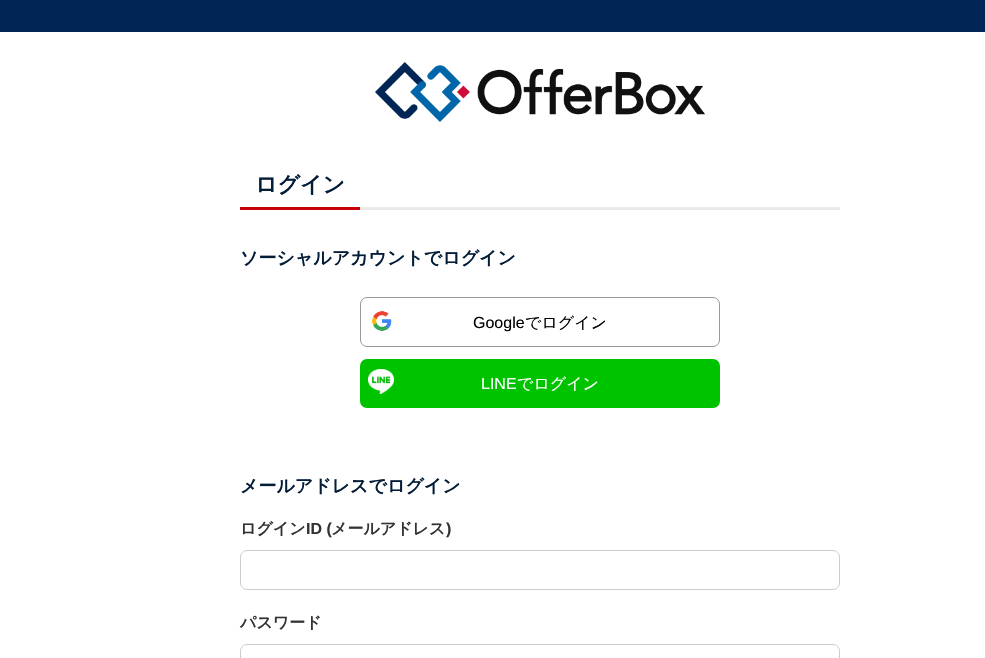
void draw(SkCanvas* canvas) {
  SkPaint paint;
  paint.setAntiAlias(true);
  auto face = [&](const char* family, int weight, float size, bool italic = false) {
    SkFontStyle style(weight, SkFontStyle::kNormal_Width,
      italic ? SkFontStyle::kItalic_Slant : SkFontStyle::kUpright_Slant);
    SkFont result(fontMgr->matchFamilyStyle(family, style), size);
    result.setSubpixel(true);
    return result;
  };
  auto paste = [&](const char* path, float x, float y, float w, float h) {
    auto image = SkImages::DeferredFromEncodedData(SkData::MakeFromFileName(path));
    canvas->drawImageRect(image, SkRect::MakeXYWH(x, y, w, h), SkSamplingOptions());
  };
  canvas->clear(0xffffffff);
  paint.setColor(0xff012554);
  canvas->drawRect(SkRect::MakeXYWH(0, 0, 985, 32), paint);
  paste("img/1.png", 375, 62, 330, 60);
  paint.setColor(0xffede9e6);
  canvas->drawRect(SkRect::MakeXYWH(360, 207, 480, 3), paint);
  paint.setColor(0xffc70004);
  canvas->drawRect(SkRect::MakeXYWH(240, 207, 120, 3), paint);
  paint.setStroke(true);
  paint.setStrokeWidth(1);
  paint.setColor(0xff989898);
  canvas->drawRoundRect(SkRect::MakeXYWH(360.5f, 297.5f, 359, 49), 6.5f, 6.5f, paint);
  paste("img/2.png", 372, 311, 20, 20);
  paint.setStroke(false);
  paint.setColor(0xff00c300);
  canvas->drawRoundRect(SkRect::MakeXYWH(360, 359, 360, 49), 7, 7, paint);
  paste("img/3.png", 368, 369, 26, 25);
  paint.setStroke(true);
  paint.setColor(0xffcccccc);
  canvas->drawRoundRect(SkRect::MakeXYWH(240.5f, 550.5f, 599, 39), 6.5f, 6.5f, paint);
  canvas->drawRoundRect(SkRect::MakeXYWH(240.5f, 644.5f, 599, 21), 6.5f, 6.5f, paint);
  auto f0 = face("WenQuanYi Zen Hei", 700, 22);
  paint.setStroke(false);
  paint.setColor(0xff031c38);
  canvas->drawString("ログイン", 255, 192, f0, paint);
  auto f1 = face("WenQuanYi Zen Hei", 700, 18);
  canvas->drawString("ソーシャルアカウントでログイン", 240, 264, f1, paint);
  auto f2 = face("Liberation Sans", 400, 16);
  paint.setColor(0xff000000);
  canvas->drawString("Google", 473, 328, f2, paint);
  auto f3 = face("WenQuanYi Zen Hei", 500, 16);
  canvas->drawString("でログイン", 525, 328, f3, paint);
  paint.setColor(0xffffffff);
  canvas->drawString("LINE", 481, 389, f2, paint);
  canvas->drawString("でログイン", 517, 389, f3, paint);
  paint.setColor(0xff031c38);
  canvas->drawString("メールアドレスでログイン", 240, 492, f1, paint);
  auto f4 = face("WenQuanYi Zen Hei", 700, 16);
  paint.setColor(0xff333333);
  canvas->drawString("ログイン", 240, 534, f4, paint);
  auto f5 = face("Liberation Sans", 700, 16);
  canvas->drawString("ID (", 306, 534, f5, paint);
  canvas->drawString("メールアドレス", 331, 534, f4, paint);
  canvas->drawString(")", 446, 534, f5, paint);
  canvas->drawString("パスワード", 240, 628, f4, paint);
}
